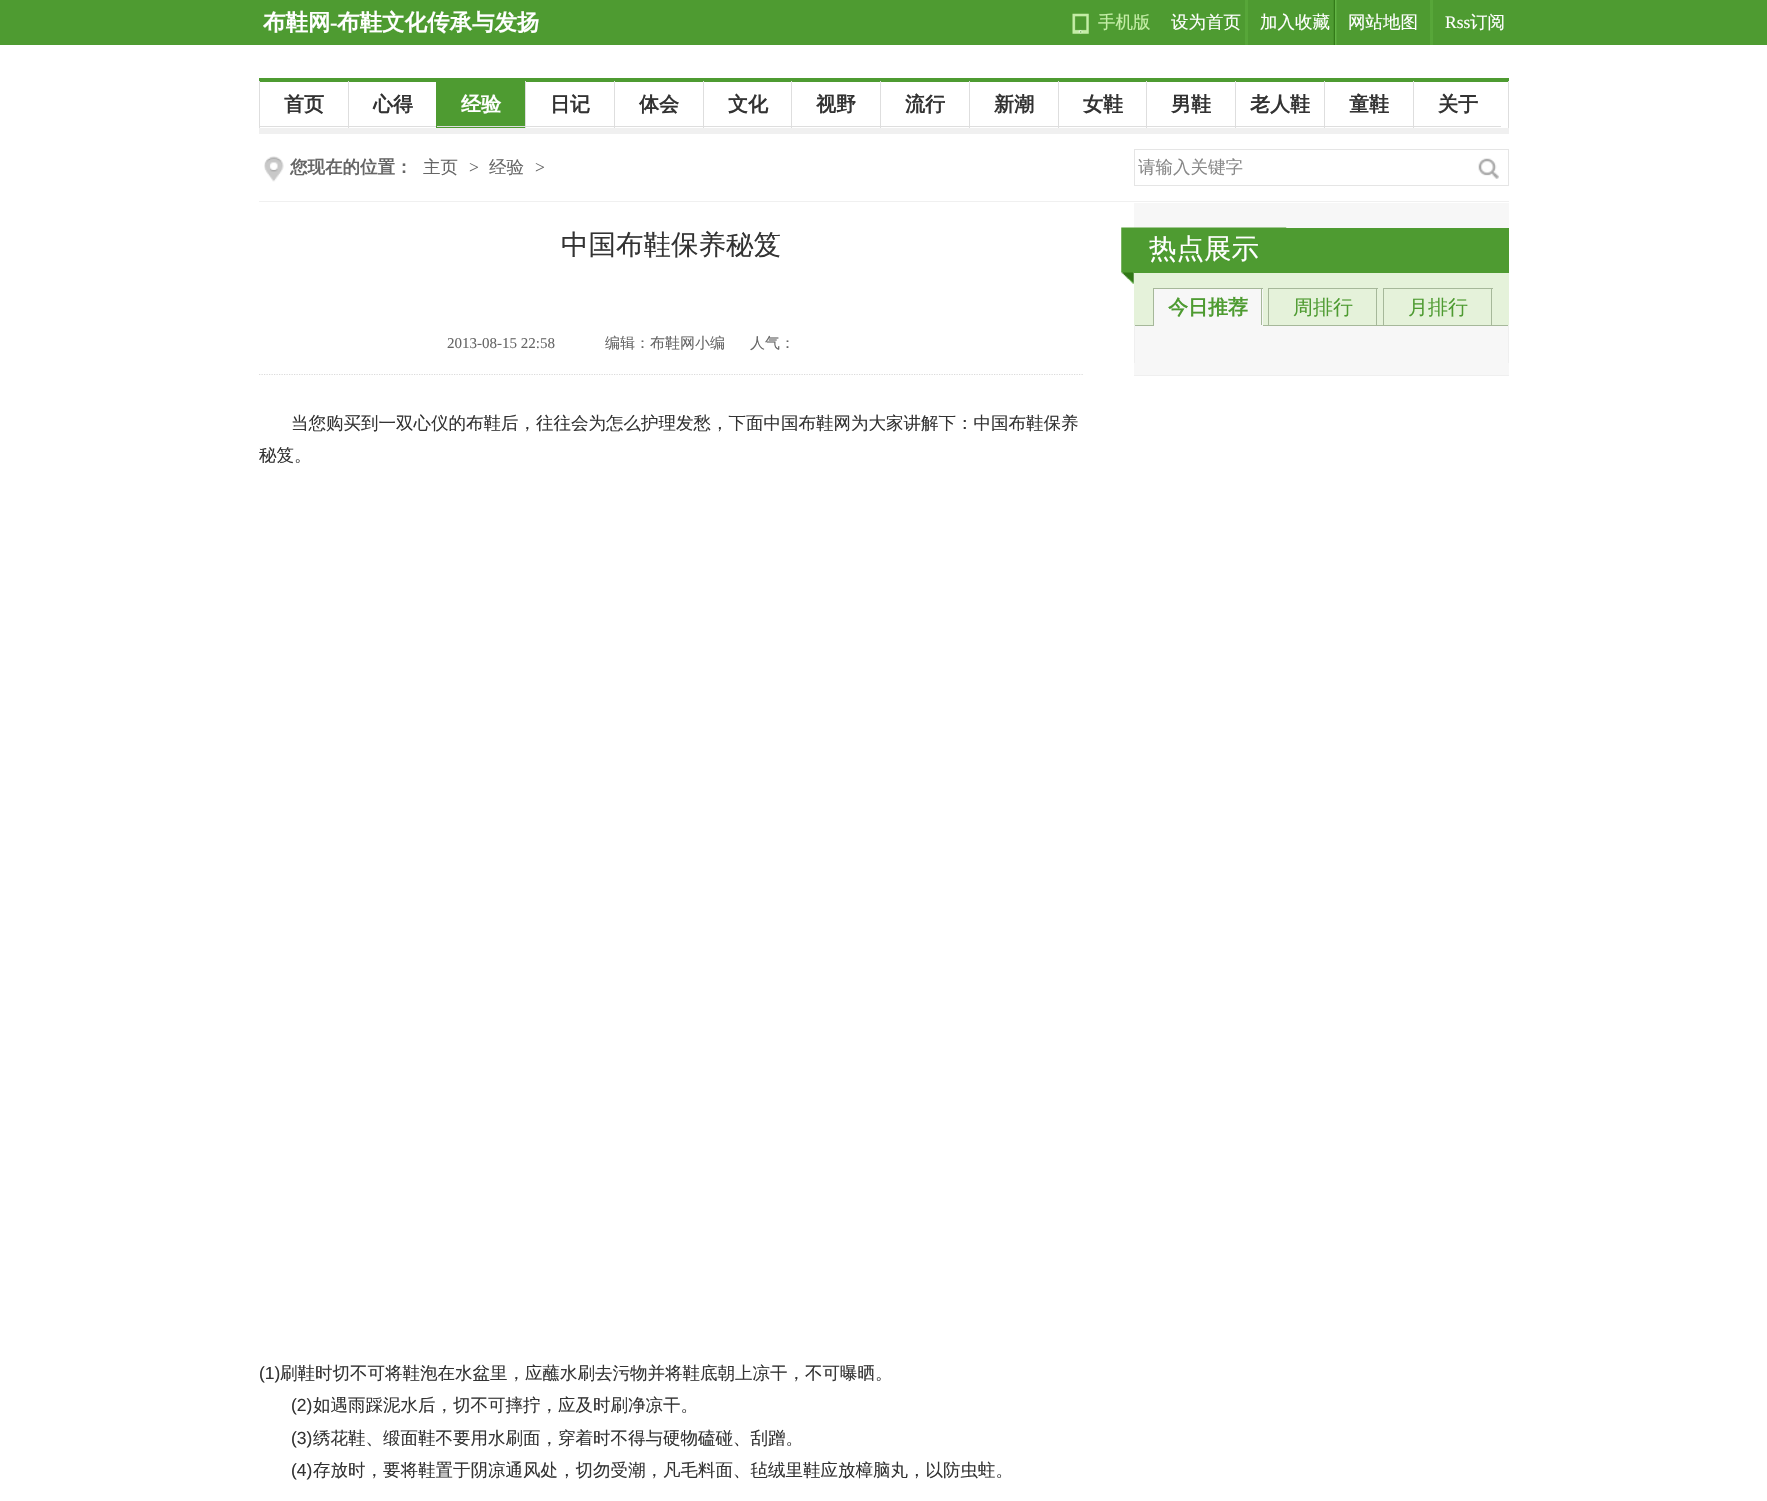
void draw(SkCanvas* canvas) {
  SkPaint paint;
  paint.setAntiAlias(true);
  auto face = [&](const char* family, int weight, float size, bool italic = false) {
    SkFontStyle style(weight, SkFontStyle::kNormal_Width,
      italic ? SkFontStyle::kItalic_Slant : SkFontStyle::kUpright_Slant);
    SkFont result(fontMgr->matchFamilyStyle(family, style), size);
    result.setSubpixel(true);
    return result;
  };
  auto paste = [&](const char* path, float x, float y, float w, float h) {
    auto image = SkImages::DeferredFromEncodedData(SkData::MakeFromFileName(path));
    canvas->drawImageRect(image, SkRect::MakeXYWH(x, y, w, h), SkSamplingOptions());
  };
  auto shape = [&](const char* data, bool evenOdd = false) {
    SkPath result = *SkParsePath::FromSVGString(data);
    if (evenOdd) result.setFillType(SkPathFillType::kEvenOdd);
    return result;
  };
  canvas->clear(0xffffffff);
  paint.setColor(0xff4e9b31);
  canvas->drawRect(SkRect::MakeXYWH(0, 0, 1767, 45), paint);
  paste("img/1.png", 1072, 13, 17, 21);
  paint.setColor(0xff57a639);
  canvas->drawRect(SkRect::MakeXYWH(1245, 0, 3, 45), paint);
  paste("img/2.png", 1333, 0, 4, 45);
  {
    const struct { float x, y, w, h; SkColor color; } items[] = {
      {1430, 0, 3, 45, 0xff57a639},
      {259, 78, 1250, 4, 0xff4e9b31},
      {259, 128, 1250, 6, 0xfff0f0f0},
      {1508, 81, 1, 47, 0xffdedede},
      {259, 126, 177, 1, 0xffdedede},
      {259, 81, 1, 47, 0xffdedede},
      {348, 81, 1, 47, 0xffdedede},
      {437, 82, 88, 46, 0xff4e9b31},
      {436, 126, 1065, 1, 0xffdedede},
      {436, 81, 1, 47, 0xff4e9b31},
      {525, 81, 1, 47, 0xffdedede},
      {614, 81, 1, 47, 0xffdedede},
      {703, 81, 1, 47, 0xffdedede},
      {791, 81, 1, 47, 0xffdedede},
      {880, 81, 1, 47, 0xffdedede},
      {969, 81, 1, 47, 0xffdedede},
      {1058, 81, 1, 47, 0xffdedede},
      {1146, 81, 1, 47, 0xffdedede},
      {1235, 81, 1, 47, 0xffdedede},
      {1324, 81, 1, 47, 0xffdedede},
      {1413, 81, 1, 47, 0xffdedede},
    };
    for (auto [x, y, w, h, color] : items) {
      paint.setColor(color);
      canvas->drawRect(SkRect::MakeXYWH(x, y, w, h), paint);
    }
  }
  paste("img/3.png", 264, 156, 20, 26);
  paint.setColor(0xfff0f0f0);
  canvas->drawRect(SkRect::MakeXYWH(259, 201, 1250, 1), paint);
  paint.setStroke(true);
  paint.setStrokeWidth(1);
  paint.setColor(0xffe5e5e5);
  canvas->drawRect(SkRect::MakeXYWH(1134.5f, 149.5f, 374, 36), paint);
  paste("img/4.png", 1478, 158, 21, 21);
  paint.setStrokeWidth(1.2f);
  paint.setColor(0xffdbdbdb);
  paint.setPathEffect(SkDashPathEffect::Make({{1.25f, 1.25f}}, 0));
  canvas->drawPath(shape("M259 374.5H1084"), paint);
  paint.setPathEffect(nullptr);
  paint.setStroke(false);
  {
    const struct { float x, y, w, h; SkColor color; } items[] = {
      {1134, 203, 375, 172, 0xfff7f7f7},
      {1134, 375, 375, 1, 0xffefefef},
      {1134, 228, 375, 45, 0xff4e9b31},
    };
    for (auto [x, y, w, h, color] : items) {
      paint.setColor(color);
      canvas->drawRect(SkRect::MakeXYWH(x, y, w, h), paint);
    }
  }
  paste("img/5.png", 1121, 227, 166, 57);
  {
    const struct { float x, y, w, h; SkColor color; } items[] = {
      {1134, 273, 375, 52, 0xffe5f2da},
      {1154, 289, 109, 36, 0xfff7f7f7},
      {1153, 288, 110, 1, 0xffa6b89a},
      {1134, 325, 375, 1, 0xffa6b89a},
      {1261, 288, 1, 38, 0xffa6b89a},
      {1153, 325, 110, 1, 0xfff7f7f7},
      {1153, 288, 1, 38, 0xffa6b89a},
      {1268, 288, 110, 1, 0xffa6b89a},
      {1376, 288, 1, 37, 0xffa6b89a},
      {1268, 288, 1, 37, 0xffa6b89a},
      {1383, 288, 110, 1, 0xffa6b89a},
      {1491, 288, 1, 37, 0xffa6b89a},
      {1383, 288, 1, 37, 0xffa6b89a},
      {1508, 325, 1, 38, 0xffefefef},
      {1134, 325, 1, 38, 0xffefefef},
    };
    for (auto [x, y, w, h, color] : items) {
      paint.setColor(color);
      canvas->drawRect(SkRect::MakeXYWH(x, y, w, h), paint);
    }
  }
  auto f0 = face("WenQuanYi Zen Hei", 700, 22.5f);
  paint.setColor(0xffffffff);
  canvas->drawString("布鞋网", 263, 30, f0, paint);
  auto f1 = face("Liberation Serif", 700, 22.5f);
  canvas->drawString("-", 330, 30, f1, paint);
  canvas->drawString("布鞋文化传承与发扬", 337, 30, f0, paint);
  auto f2 = face("WenQuanYi Zen Hei", 500, 17.5f);
  paint.setColor(0xffc4eda6);
  canvas->drawString("手机版", 1098, 28, f2, paint);
  paint.setColor(0xffffffff);
  {
    const struct { const char* s; float x, y; } items[] = {
      {"设为首页", 1171, 28},
      {"加入收藏", 1260, 28},
      {"网站地图", 1348, 28},
    };
    for (auto [s, x, y] : items) {
      canvas->drawString(s, x, y, f2, paint);
    }
  }
  auto f3 = face("Liberation Serif", 400, 17.5f);
  canvas->drawString("Rss", 1445, 28, f3, paint);
  canvas->drawString("订阅", 1470, 28, f2, paint);
  auto f4 = face("WenQuanYi Zen Hei", 700, 20);
  paint.setColor(0xff333333);
  canvas->drawString("首页", 284, 111, f4, paint);
  canvas->drawString("心得", 373, 111, f4, paint);
  paint.setColor(0xffffffff);
  canvas->drawString("经验", 461, 111, f4, paint);
  paint.setColor(0xff333333);
  {
    const struct { const char* s; float x, y; } items[] = {
      {"日记", 550, 111},
      {"体会", 639, 111},
      {"文化", 728, 111},
      {"视野", 816, 111},
      {"流行", 905, 111},
      {"新潮", 994, 111},
      {"女鞋", 1083, 111},
      {"男鞋", 1171, 111},
      {"老人鞋", 1250, 111},
      {"童鞋", 1349, 111},
      {"关于", 1438, 111},
    };
    for (auto [s, x, y] : items) {
      canvas->drawString(s, x, y, f4, paint);
    }
  }
  auto f5 = face("WenQuanYi Zen Hei", 700, 17.5f);
  paint.setColor(0xff666666);
  canvas->drawString("您现在的位置：", 290, 173, f5, paint);
  canvas->drawString("主页", 423, 173, f2, paint);
  canvas->drawString(">", 469, 173, f3, paint);
  canvas->drawString("经验", 489, 173, f2, paint);
  canvas->drawString(">", 535, 173, f3, paint);
  paint.setColor(0xff888888);
  canvas->drawString("请输入关键字", 1138, 173, f2, paint);
  auto f6 = face("WenQuanYi Zen Hei", 500, 27.5f);
  paint.setColor(0xff333333);
  canvas->drawString("中国布鞋保养秘笈", 561, 254, f6, paint);
  auto f7 = face("Liberation Serif", 400, 15);
  paint.setColor(0xff666666);
  canvas->drawString("2013-08-15 22:58", 447, 348, f7, paint);
  auto f8 = face("WenQuanYi Zen Hei", 500, 15);
  canvas->drawString("编辑：布鞋网小编", 605, 348, f8, paint);
  canvas->drawString("人气：", 750, 348, f8, paint);
  paint.setColor(0xff333333);
  canvas->drawString("当您购买到一双心仪的布鞋后，往往会为怎么护理发愁，下面中国布鞋网为大家讲解下：中国布鞋保养", 291, 429, f2, paint);
  canvas->drawString("秘笈。", 259, 461, f2, paint);
  auto f9 = face("Liberation Sans", 400, 17.5f);
  canvas->drawString("(1)", 259, 1379, f9, paint);
  canvas->drawString("刷鞋时切不可将鞋泡在水盆里，应蘸水刷去污物并将鞋底朝上凉干，不可曝晒。", 280, 1379, f2, paint);
  canvas->drawString("(2)", 291, 1411, f9, paint);
  canvas->drawString("如遇雨踩泥水后，切不可摔拧，应及时刷净凉干。", 313, 1411, f2, paint);
  canvas->drawString("(3)", 291, 1444, f9, paint);
  canvas->drawString("绣花鞋、缎面鞋不要用水刷面，穿着时不得与硬物磕碰、刮蹭。", 313, 1444, f2, paint);
  canvas->drawString("(4)", 291, 1476, f9, paint);
  canvas->drawString("存放时，要将鞋置于阴凉通风处，切勿受潮，凡毛料面、毡绒里鞋应放樟脑丸，以防虫蛀。", 313, 1476, f2, paint);
  paint.setColor(0xffffffff);
  canvas->drawString("热点展示", 1149, 258, f6, paint);
  paint.setColor(0xff4e9b31);
  canvas->drawString("今日推荐", 1168, 314, f4, paint);
  auto f10 = face("WenQuanYi Zen Hei", 500, 20);
  canvas->drawString("周排行", 1293, 314, f10, paint);
  canvas->drawString("月排行", 1408, 314, f10, paint);
}
